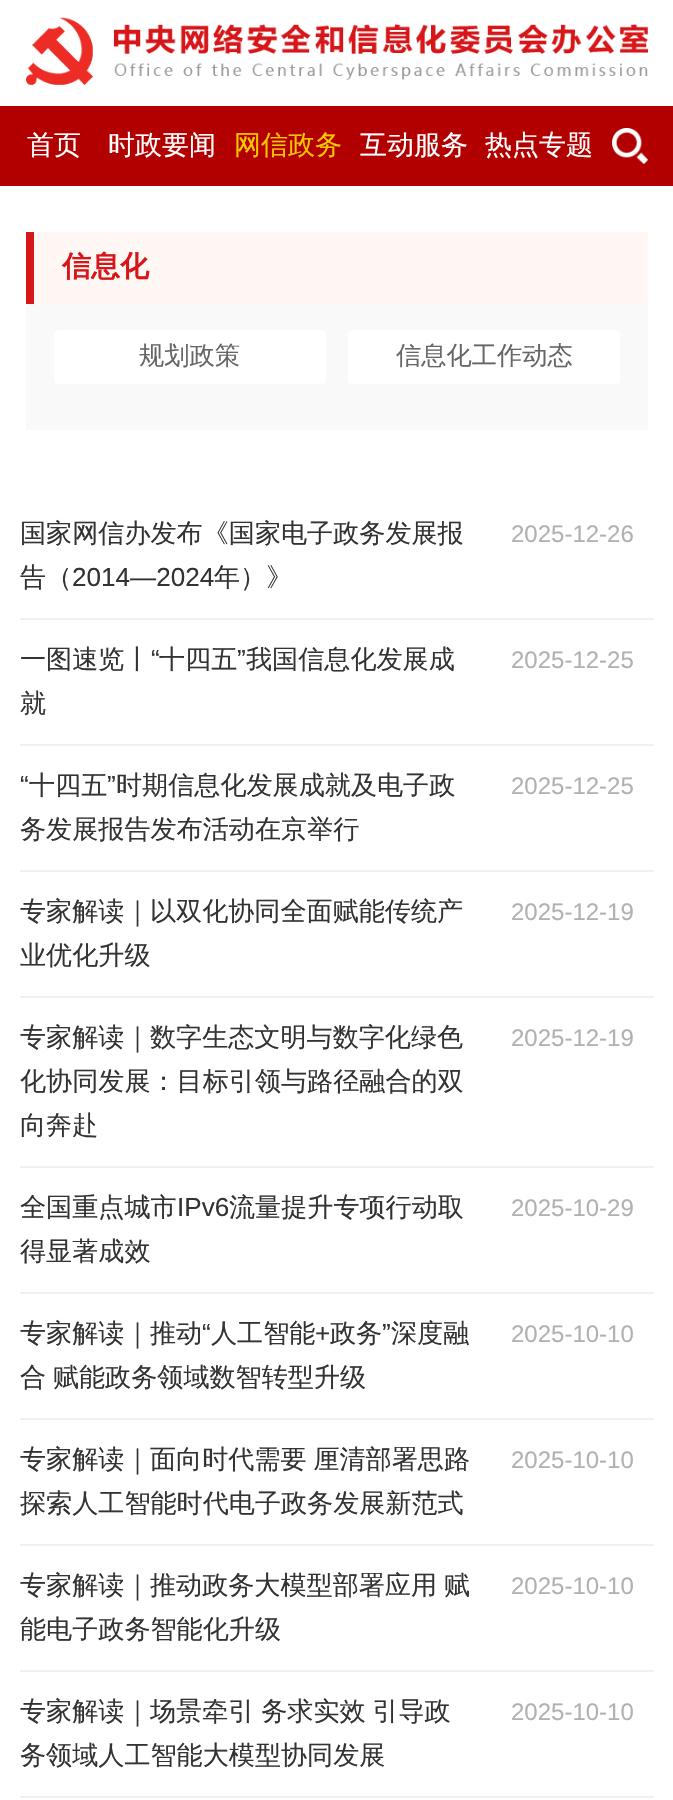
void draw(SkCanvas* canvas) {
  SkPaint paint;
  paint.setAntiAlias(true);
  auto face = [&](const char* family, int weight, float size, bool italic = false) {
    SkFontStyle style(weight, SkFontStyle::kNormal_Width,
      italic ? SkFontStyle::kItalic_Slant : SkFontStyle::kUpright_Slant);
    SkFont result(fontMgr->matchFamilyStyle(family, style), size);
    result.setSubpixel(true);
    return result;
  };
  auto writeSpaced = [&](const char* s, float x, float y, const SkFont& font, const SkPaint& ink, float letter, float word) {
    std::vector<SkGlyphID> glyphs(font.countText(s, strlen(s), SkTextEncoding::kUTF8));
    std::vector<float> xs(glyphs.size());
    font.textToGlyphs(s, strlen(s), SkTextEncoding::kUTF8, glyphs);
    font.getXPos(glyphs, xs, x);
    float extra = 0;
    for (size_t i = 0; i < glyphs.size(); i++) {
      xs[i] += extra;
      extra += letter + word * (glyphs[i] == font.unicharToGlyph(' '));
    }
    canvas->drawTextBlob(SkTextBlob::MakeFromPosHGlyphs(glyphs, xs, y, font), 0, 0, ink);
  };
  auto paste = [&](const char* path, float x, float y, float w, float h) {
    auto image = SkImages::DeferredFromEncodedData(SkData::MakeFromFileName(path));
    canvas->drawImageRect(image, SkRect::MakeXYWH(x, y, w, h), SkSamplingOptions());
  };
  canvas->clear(0xffffffff);
  paste("img/1.png", 26, 17, 622, 68);
  paint.setColor(0xffb20000);
  canvas->drawRect(SkRect::MakeXYWH(0, 106, 673, 80), paint);
  paste("img/2.png", 612, 128, 36, 36);
  {
    const struct { float x, y, w, h; SkColor color; } items[] = {
      {34, 232, 614, 72, 0xfffff7f3},
      {26, 232, 8, 72, 0xffd71619},
      {26, 304, 622, 126, 0xfff9f9f9},
    };
    for (auto [x, y, w, h, color] : items) {
      paint.setColor(color);
      canvas->drawRect(SkRect::MakeXYWH(x, y, w, h), paint);
    }
  }
  paint.setColor(0xffffffff);
  canvas->drawRoundRect(SkRect::MakeXYWH(54, 330, 272, 54), 4, 4, paint);
  canvas->drawRoundRect(SkRect::MakeXYWH(348, 330, 272, 54), 4, 4, paint);
  {
    const struct { float x, y, w, h; SkColor color; } items[] = {
      {20, 618, 634, 2, 0xfff1f1f1},
      {20, 744, 634, 2, 0xfff1f1f1},
      {20, 870, 634, 2, 0xfff1f1f1},
      {20, 996, 634, 2, 0xfff1f1f1},
      {20, 1166, 634, 2, 0xfff1f1f1},
      {20, 1292, 634, 2, 0xfff1f1f1},
      {20, 1418, 634, 2, 0xfff1f1f1},
      {20, 1544, 634, 2, 0xfff1f1f1},
      {20, 1670, 634, 2, 0xfff1f1f1},
      {20, 1796, 634, 2, 0xfff1f1f1},
    };
    for (auto [x, y, w, h, color] : items) {
      paint.setColor(color);
      canvas->drawRect(SkRect::MakeXYWH(x, y, w, h), paint);
    }
  }
  auto f0 = face("WenQuanYi Zen Hei", 500, 27);
  paint.setColor(0xffffffff);
  canvas->drawString("首页", 27, 154, f0, paint);
  canvas->drawString("时政要闻", 108, 154, f0, paint);
  paint.setColor(0xfffac700);
  canvas->drawString("网信政务", 234, 154, f0, paint);
  paint.setColor(0xffffffff);
  canvas->drawString("互动服务", 360, 154, f0, paint);
  canvas->drawString("热点专题", 485, 154, f0, paint);
  auto f1 = face("WenQuanYi Zen Hei", 700, 29);
  paint.setColor(0xffd71619);
  canvas->drawString("信息化", 62, 276, f1, paint);
  auto f2 = face("WenQuanYi Zen Hei", 500, 25.25f);
  paint.setColor(0xff666666);
  canvas->drawString("规划政策", 139, 364, f2, paint);
  canvas->drawString("信息化工作动态", 396, 364, f2, paint);
  auto f3 = face("WenQuanYi Zen Hei", 500, 26.1f);
  paint.setColor(0xff333333);
  canvas->drawString("国家网信办发布《国家电子政务发展报", 20, 542, f3, paint);
  canvas->drawString("告（", 20, 586, f3, paint);
  auto f4 = face("Liberation Sans", 400, 26.1f);
  canvas->drawString("2014—2024", 72, 586, f4, paint);
  canvas->drawString("年）》", 214, 586, f3, paint);
  auto f5 = face("Liberation Sans", 400, 24);
  paint.setColor(0xffb1b1b1);
  canvas->drawString("2025-12-26", 511, 542, f5, paint);
  paint.setColor(0xff333333);
  canvas->drawString("一图速览丨", 20, 668, f3, paint);
  canvas->drawString("“", 151, 668, f4, paint);
  canvas->drawString("十四五", 159, 668, f3, paint);
  canvas->drawString("”", 237, 668, f4, paint);
  canvas->drawString("我国信息化发展成", 246, 668, f3, paint);
  canvas->drawString("就", 20, 712, f3, paint);
  paint.setColor(0xffb1b1b1);
  canvas->drawString("2025-12-25", 511, 668, f5, paint);
  paint.setColor(0xff333333);
  canvas->drawString("“", 20, 794, f4, paint);
  canvas->drawString("十四五", 29, 794, f3, paint);
  canvas->drawString("”", 107, 794, f4, paint);
  canvas->drawString("时期信息化发展成就及电子政", 116, 794, f3, paint);
  canvas->drawString("务发展报告发布活动在京举行", 20, 838, f3, paint);
  paint.setColor(0xffb1b1b1);
  canvas->drawString("2025-12-25", 511, 794, f5, paint);
  paint.setColor(0xff333333);
  canvas->drawString("专家解读｜以双化协同全面赋能传统产", 20, 920, f3, paint);
  canvas->drawString("业优化升级", 20, 964, f3, paint);
  paint.setColor(0xffb1b1b1);
  canvas->drawString("2025-12-19", 511, 920, f5, paint);
  paint.setColor(0xff333333);
  {
    const struct { const char* s; float x, y; } items[] = {
      {"专家解读｜数字生态文明与数字化绿色", 20, 1046},
      {"化协同发展：目标引领与路径融合的双", 20, 1090},
      {"向奔赴", 20, 1134},
    };
    for (auto [s, x, y] : items) {
      canvas->drawString(s, x, y, f3, paint);
    }
  }
  paint.setColor(0xffb1b1b1);
  canvas->drawString("2025-12-19", 511, 1046, f5, paint);
  paint.setColor(0xff333333);
  canvas->drawString("全国重点城市", 20, 1216, f3, paint);
  canvas->drawString("IPv6", 177, 1216, f4, paint);
  canvas->drawString("流量提升专项行动取", 229, 1216, f3, paint);
  canvas->drawString("得显著成效", 20, 1260, f3, paint);
  paint.setColor(0xffb1b1b1);
  canvas->drawString("2025-10-29", 511, 1216, f5, paint);
  paint.setColor(0xff333333);
  canvas->drawString("专家解读｜推动", 20, 1342, f3, paint);
  canvas->drawString("“", 202, 1342, f4, paint);
  canvas->drawString("人工智能", 211, 1342, f3, paint);
  canvas->drawString("+", 315, 1342, f4, paint);
  canvas->drawString("政务", 330, 1342, f3, paint);
  canvas->drawString("”", 382, 1342, f4, paint);
  canvas->drawString("深度融", 391, 1342, f3, paint);
  writeSpaced("合 赋能政务领域数智转型升级", 20, 1386, f3, paint, 0, -1);
  paint.setColor(0xffb1b1b1);
  canvas->drawString("2025-10-10", 511, 1342, f5, paint);
  paint.setColor(0xff333333);
  writeSpaced("专家解读｜面向时代需要 厘清部署思路", 20, 1468, f3, paint, 0, -1);
  canvas->drawString("探索人工智能时代电子政务发展新范式", 20, 1512, f3, paint);
  paint.setColor(0xffb1b1b1);
  canvas->drawString("2025-10-10", 511, 1468, f5, paint);
  paint.setColor(0xff333333);
  writeSpaced("专家解读｜推动政务大模型部署应用 赋", 20, 1594, f3, paint, 0, -1);
  canvas->drawString("能电子政务智能化升级", 20, 1638, f3, paint);
  paint.setColor(0xffb1b1b1);
  canvas->drawString("2025-10-10", 511, 1594, f5, paint);
  paint.setColor(0xff333333);
  writeSpaced("专家解读｜场景牵引 务求实效 引导政", 20, 1720, f3, paint, 0, -1);
  canvas->drawString("务领域人工智能大模型协同发展", 20, 1764, f3, paint);
  paint.setColor(0xffb1b1b1);
  canvas->drawString("2025-10-10", 511, 1720, f5, paint);
}
